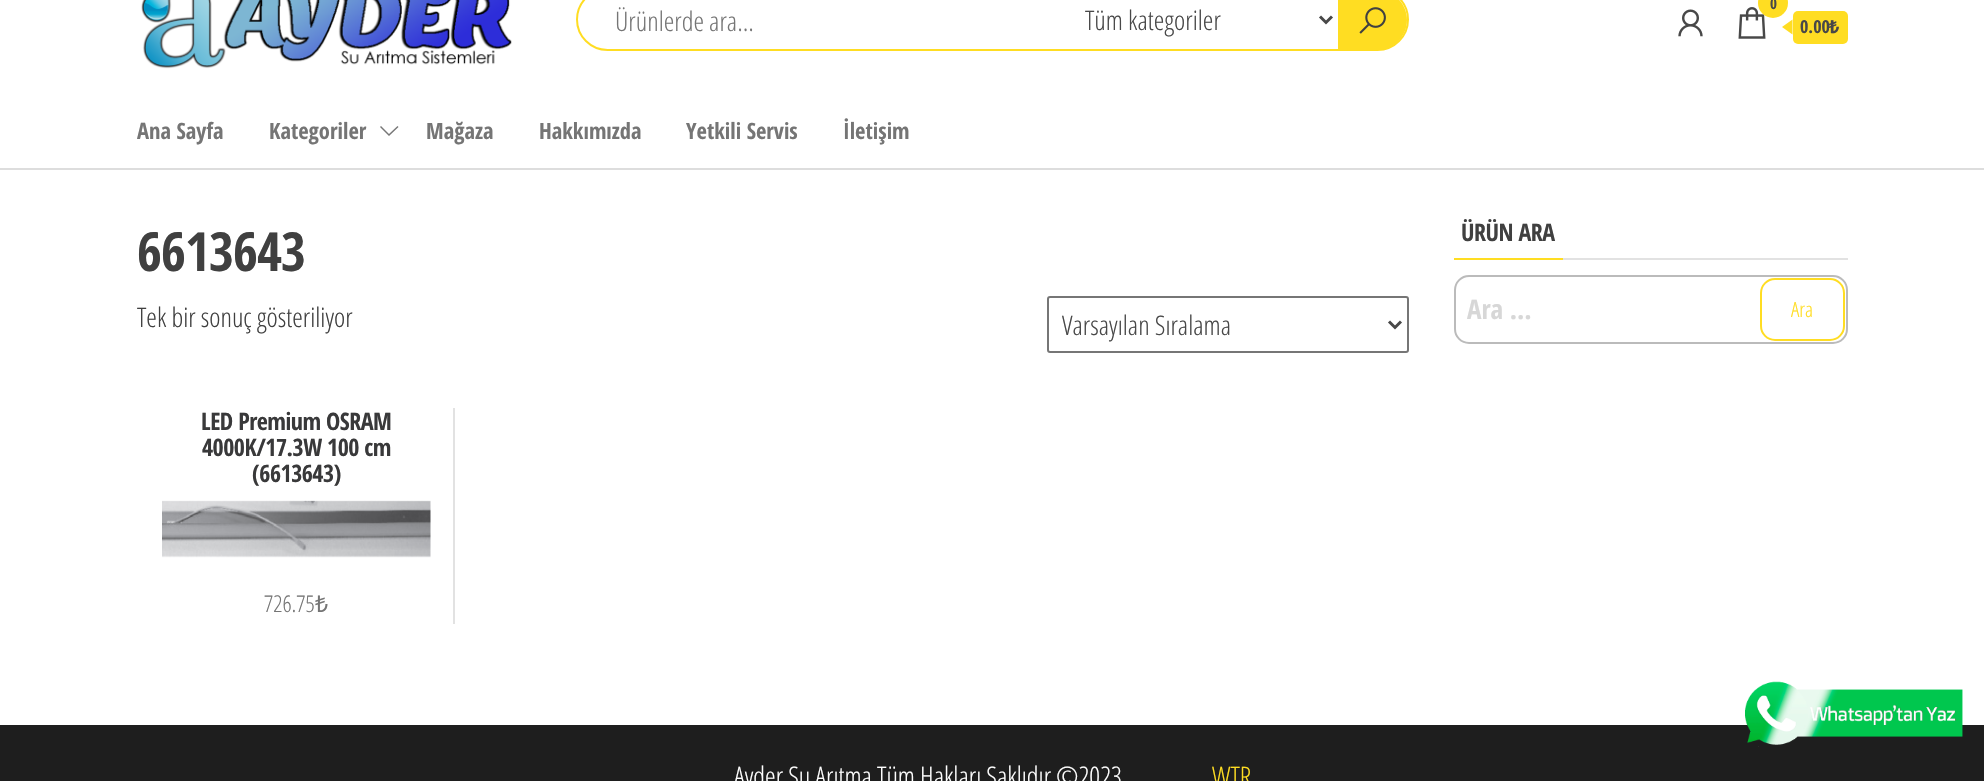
void draw(SkCanvas* canvas) {
  SkPaint paint;
  paint.setAntiAlias(true);
  auto face = [&](const char* family, int weight, float size, bool italic = false) {
    SkFontStyle style(weight, SkFontStyle::kNormal_Width,
      italic ? SkFontStyle::kItalic_Slant : SkFontStyle::kUpright_Slant);
    SkFont result(fontMgr->matchFamilyStyle(family, style), size);
    result.setSubpixel(true);
    return result;
  };
  auto writeSpaced = [&](const char* s, float x, float y, const SkFont& font, const SkPaint& ink, float letter, float word) {
    std::vector<SkGlyphID> glyphs(font.countText(s, strlen(s), SkTextEncoding::kUTF8));
    std::vector<float> xs(glyphs.size());
    font.textToGlyphs(s, strlen(s), SkTextEncoding::kUTF8, glyphs);
    font.getXPos(glyphs, xs, x);
    float extra = 0;
    for (size_t i = 0; i < glyphs.size(); i++) {
      xs[i] += extra;
      extra += letter + word * (glyphs[i] == font.unicharToGlyph(' '));
    }
    canvas->drawTextBlob(SkTextBlob::MakeFromPosHGlyphs(glyphs, xs, y, font), 0, 0, ink);
  };
  auto paste = [&](const char* path, float x, float y, float w, float h) {
    auto image = SkImages::DeferredFromEncodedData(SkData::MakeFromFileName(path));
    canvas->drawImageRect(image, SkRect::MakeXYWH(x, y, w, h), SkSamplingOptions());
  };
  auto shape = [&](const char* data, bool evenOdd = false) {
    SkPath result = *SkParsePath::FromSVGString(data);
    if (evenOdd) result.setFillType(SkPathFillType::kEvenOdd);
    return result;
  };
  canvas->clear(0xffffffff);
  paste("img/1.png", 141, 0, 371, 69);
  paint.setStroke(true);
  paint.setStrokeWidth(2);
  paint.setColor(0xffffdd22);
  canvas->drawRoundRect(SkRect::MakeXYWH(577, -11, 831, 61), 30.5f, 30.5f, paint);
  paint.setStrokeWidth(3);
  paint.setColor(0xff484848);
  canvas->drawPath(shape("M1320 16.5L1326 22.5L1332 16.5"), paint);
  paint.setStroke(false);
  paint.setColor(0xffffdd22);
  canvas->drawPath(shape("M1338-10H1377C1393.5-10 1407 3.5 1407 20C1407 36.5 1393.5 50 1377 50H1338Z"), paint);
  paste("img/2.png", 1359, 7, 27, 27);
  paste("img/3.png", 1678, 9, 25, 28);
  paste("img/4.png", 1738, 7, 28, 32);
  canvas->drawCircle(1773, 3, 15, paint);
  canvas->drawRoundRect(SkRect::MakeXYWH(1793, 11, 55, 33), 5, 5, paint);
  canvas->drawPath(shape("M1792.5 19.5V34.5L1782 27Z"), paint);
  paint.setColor(0xffdddddd);
  canvas->drawRect(SkRect::MakeXYWH(0, 168, 1984, 2), paint);
  paint.setColor(0xff777777);
  canvas->drawPath(shape("M381 126L380 127L389 136L398.5 127L397.5 126L389 134Z"), paint);
  paint.setStroke(true);
  paint.setStrokeWidth(2);
  paint.setColor(0xff767676);
  canvas->drawRoundRect(SkRect::MakeXYWH(1048, 297, 360, 55), 2, 2, paint);
  paint.setStrokeWidth(3);
  paint.setColor(0xff484848);
  canvas->drawPath(shape("M1389 321.5L1395 327.5L1401 321.5"), paint);
  paste("img/5.png", 162, 500, 269, 58);
  paint.setStroke(false);
  {
    const struct { float x, y, w, h; SkColor color; } items[] = {
      {453, 408, 2, 216, 0xffe2e2e2},
      {1563, 258, 285, 2, 0xffe2e2e2},
      {1454, 258, 109, 2, 0xffffdd22},
    };
    for (auto [x, y, w, h, color] : items) {
      paint.setColor(color);
      canvas->drawRect(SkRect::MakeXYWH(x, y, w, h), paint);
    }
  }
  paint.setStroke(true);
  paint.setStrokeWidth(2);
  paint.setColor(0xffbbbbbb);
  canvas->drawRoundRect(SkRect::MakeXYWH(1455, 276, 392, 67), 14, 14, paint);
  paint.setColor(0xffffdd22);
  canvas->drawRoundRect(SkRect::MakeXYWH(1761, 279, 83, 61), 14, 14, paint);
  paint.setStroke(false);
  paint.setColor(0xff1e1e1e);
  canvas->drawRect(SkRect::MakeXYWH(0, 725, 1984, 56), paint);
  paste("img/6.png", 1745, 681, 218, 66);
  auto f0 = face("Open Sans Condensed", 300, 27);
  paint.setColor(0xff757575);
  canvas->drawString("Ürünlerde ara...", 615, 31, f0, paint);
  paint.setColor(0xff484848);
  canvas->drawString("Tüm kategoriler", 1085, 30, f0, paint);
  auto f1 = face("Open Sans Condensed", 700, 15);
  canvas->drawString("0", 1770, 9, f1, paint);
  auto f2 = face("Open Sans Condensed", 700, 18);
  canvas->drawString("0.00", 1800, 33, f2, paint);
  auto f3 = face("Noto Sans", 700, 18);
  canvas->drawString("₺", 1829, 33, f3, paint);
  auto f4 = face("Open Sans Condensed", 700, 22.5f);
  paint.setColor(0xff757575);
  {
    const struct { const char* s; float x, y; } items[] = {
      {"Ana Sayfa", 137, 139},
      {"Kategoriler", 269, 139},
      {"Mağaza", 426, 139},
      {"Hakkımızda", 539, 139},
      {"Yetkili Servis", 686, 139},
      {"İletişim", 843, 139},
    };
    for (auto [s, x, y] : items) {
      canvas->drawString(s, x, y, f4, paint);
    }
  }
  auto f5 = face("Open Sans Condensed", 700, 54);
  paint.setColor(0xff404040);
  writeSpaced("6613643", 137, 271, f5, paint, -1, 0);
  canvas->drawString("Tek bir sonuç gösteriliyor", 137, 327, f0, paint);
  paint.setColor(0xff484848);
  canvas->drawString("Varsayılan Sıralama", 1062, 335, f0, paint);
  auto f6 = face("Open Sans Condensed", 700, 24);
  paint.setColor(0xff39393a);
  {
    const struct { const char* s; float x, y; } items[] = {
      {"LED Premium OSRAM", 201, 430},
      {"4000K/17.3W 100 cm", 202, 456},
      {"(6613643)", 252, 482},
    };
    for (auto [s, x, y] : items) {
      writeSpaced(s, x, y, f6, paint, -0.5f, 0);
    }
  }
  auto f7 = face("Open Sans Condensed", 300, 23);
  paint.setColor(0xff757575);
  canvas->drawString("726.75", 264, 612, f7, paint);
  auto f8 = face("Noto Sans", 400, 23);
  canvas->drawString("₺", 315, 612, f8, paint);
  paint.setColor(0xff404040);
  writeSpaced("ÜRÜN ARA", 1461, 241, f6, paint, -0.5f, 0);
  auto f9 = face("Open Sans Condensed", 700, 27);
  paint.setColor(0xffd7d7d7);
  canvas->drawString("Ara …", 1467, 319, f9, paint);
  auto f10 = face("Open Sans Condensed", 300, 21);
  paint.setColor(0xffffdd22);
  canvas->drawString("Ara", 1791, 317, f10, paint);
  paint.setColor(0xffffffff);
  canvas->drawString("Ayder Su Arıtma Tüm Hakları Saklıdır ©2023", 734, 786, f0, paint);
  paint.setColor(0xffffdd22);
  canvas->drawString("WTR", 1212, 786, f0, paint);
}
